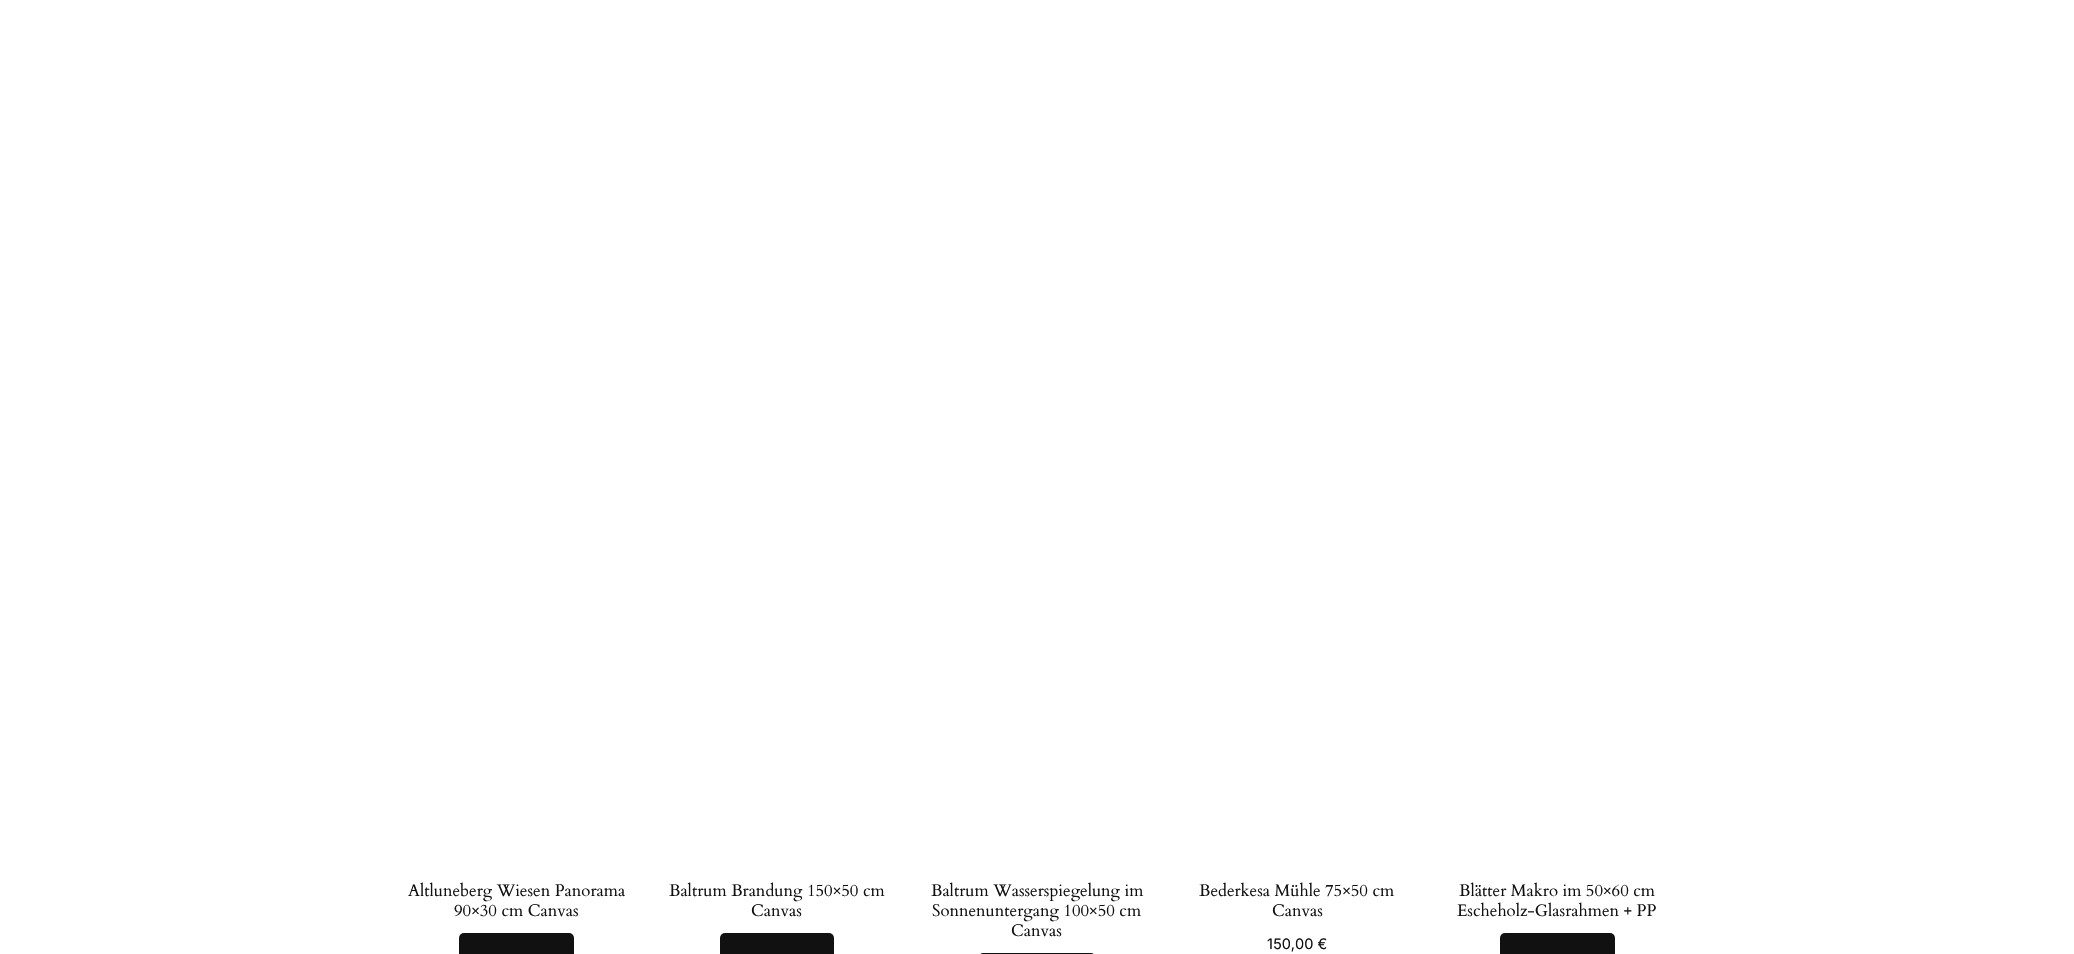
void draw(SkCanvas* canvas) {
  SkPaint paint;
  paint.setAntiAlias(true);
  auto face = [&](const char* family, int weight, float size, bool italic = false) {
    SkFontStyle style(weight, SkFontStyle::kNormal_Width,
      italic ? SkFontStyle::kItalic_Slant : SkFontStyle::kUpright_Slant);
    SkFont result(fontMgr->matchFamilyStyle(family, style), size);
    result.setSubpixel(true);
    return result;
  };
  canvas->clear(0xffffffff);
  paint.setColor(0xff111111);
  canvas->drawRoundRect(SkRect::MakeXYWH(459, 933, 115, 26), 5, 5, paint);
  canvas->drawRoundRect(SkRect::MakeXYWH(720, 933, 114, 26), 5, 5, paint);
  canvas->drawRoundRect(SkRect::MakeXYWH(980, 953, 114, 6), 5, 5, paint);
  canvas->drawRoundRect(SkRect::MakeXYWH(1500, 933, 115, 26), 5, 5, paint);
  auto f0 = face("Cardo", 400, 16.75f);
  {
    const struct { const char* s; float x, y; } items[] = {
      {"Altluneberg Wiesen Panorama", 408, 896},
      {"90×30 cm Canvas", 454, 916},
      {"Baltrum Brandung 150×50 cm", 669, 896},
      {"Canvas", 751, 916},
      {"Baltrum Wasserspiegelung im", 931, 896},
      {"Sonnenuntergang 100×50 cm", 932, 916},
      {"Canvas", 1011, 936},
      {"Bederkesa Mühle 75×50 cm", 1199, 896},
      {"Canvas", 1272, 916},
    };
    for (auto [s, x, y] : items) {
      canvas->drawString(s, x, y, f0, paint);
    }
  }
  auto f1 = face("Inter", 400, 14.5f);
  canvas->drawString("150,00 €", 1267, 949, f1, paint);
  canvas->drawString("Blätter Makro im 50×60 cm", 1459, 896, f0, paint);
  canvas->drawString("Escheholz-Glasrahmen + PP", 1457, 916, f0, paint);
}
